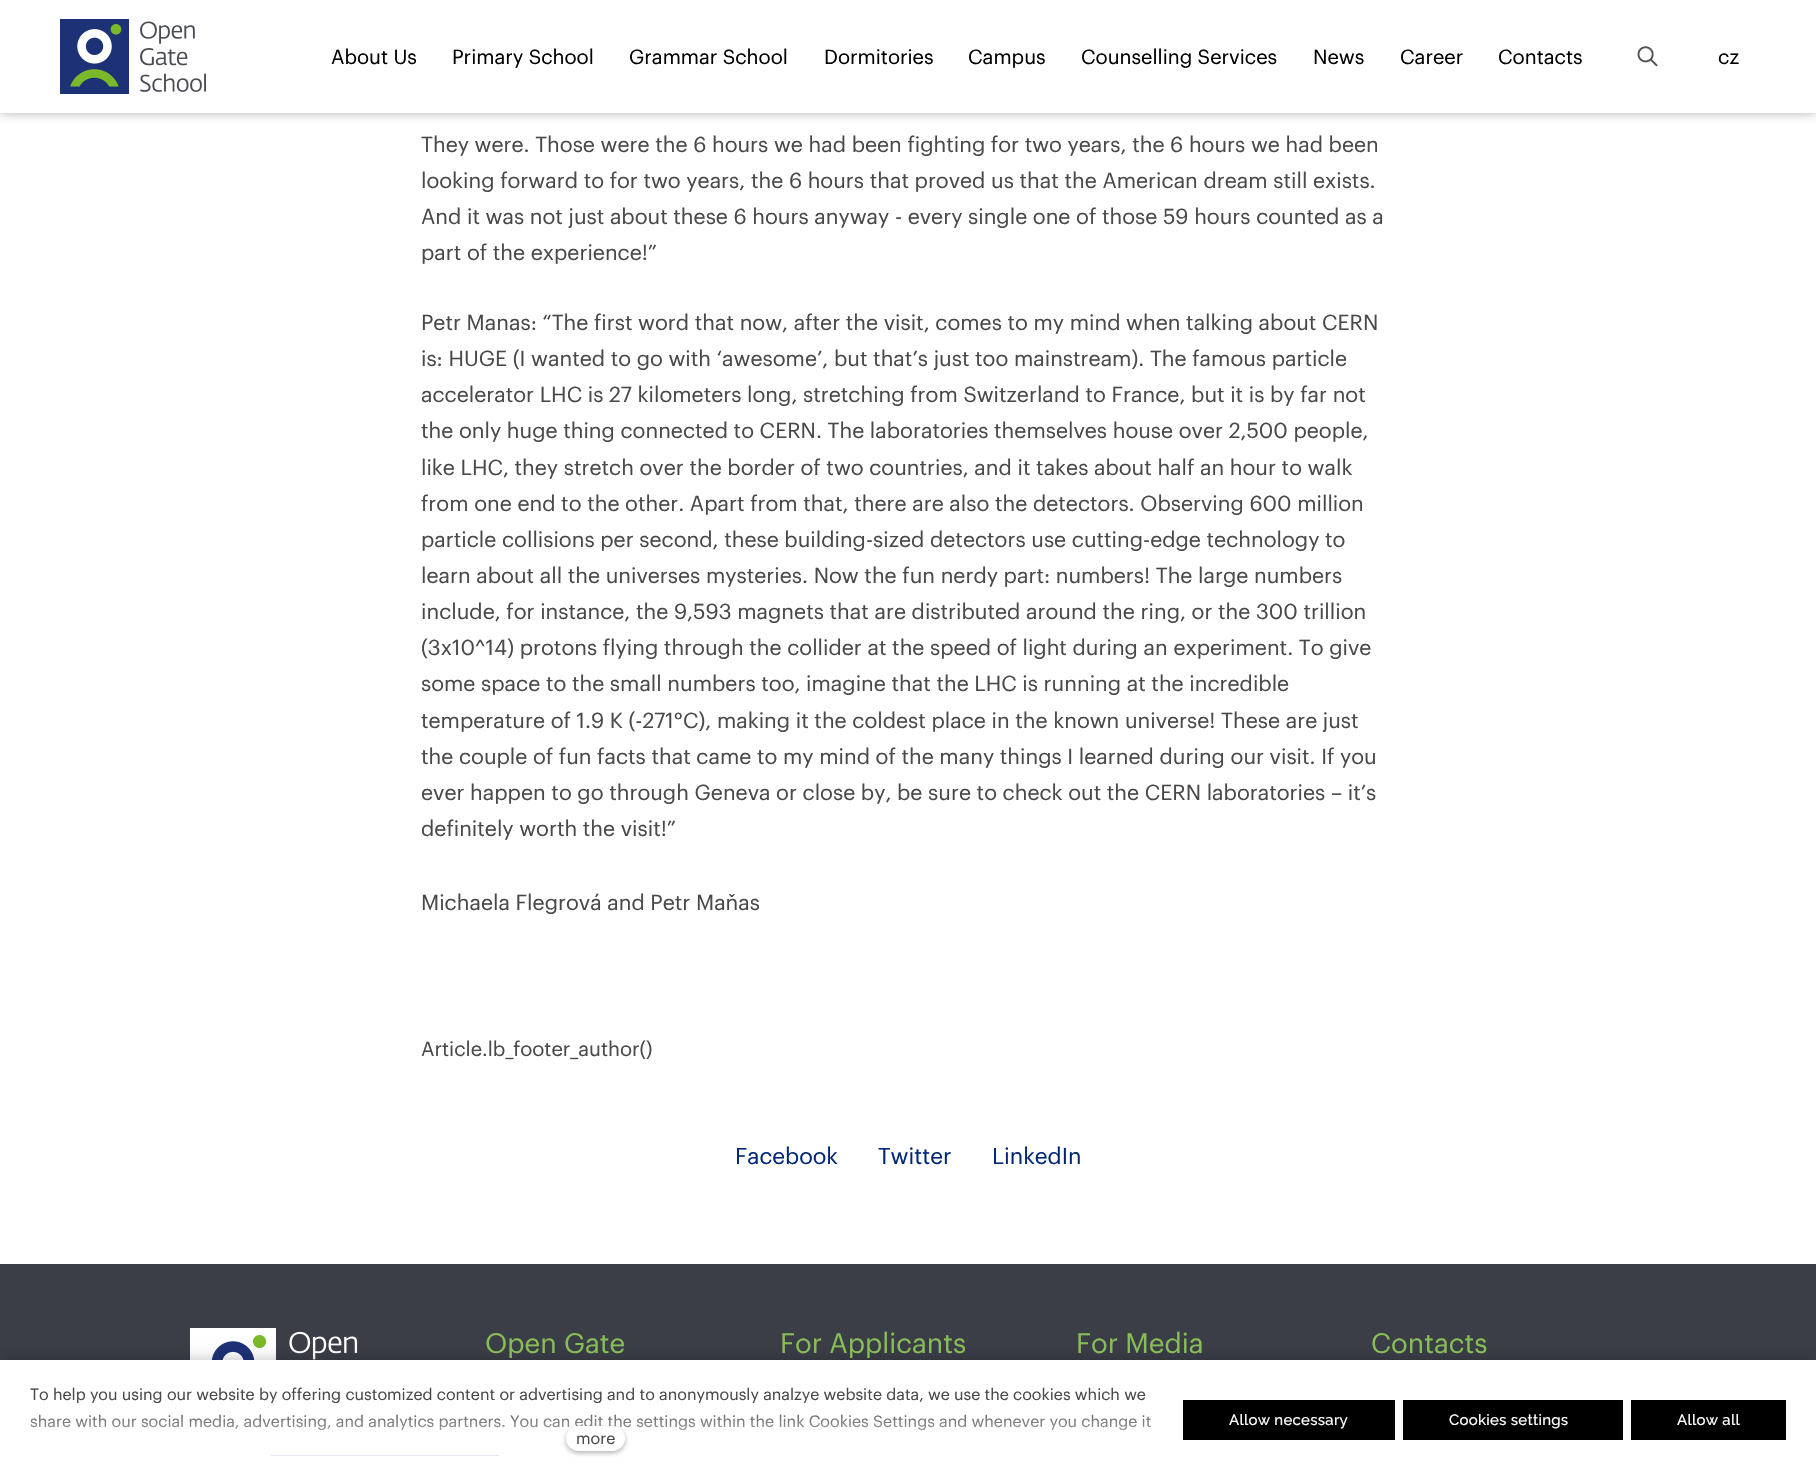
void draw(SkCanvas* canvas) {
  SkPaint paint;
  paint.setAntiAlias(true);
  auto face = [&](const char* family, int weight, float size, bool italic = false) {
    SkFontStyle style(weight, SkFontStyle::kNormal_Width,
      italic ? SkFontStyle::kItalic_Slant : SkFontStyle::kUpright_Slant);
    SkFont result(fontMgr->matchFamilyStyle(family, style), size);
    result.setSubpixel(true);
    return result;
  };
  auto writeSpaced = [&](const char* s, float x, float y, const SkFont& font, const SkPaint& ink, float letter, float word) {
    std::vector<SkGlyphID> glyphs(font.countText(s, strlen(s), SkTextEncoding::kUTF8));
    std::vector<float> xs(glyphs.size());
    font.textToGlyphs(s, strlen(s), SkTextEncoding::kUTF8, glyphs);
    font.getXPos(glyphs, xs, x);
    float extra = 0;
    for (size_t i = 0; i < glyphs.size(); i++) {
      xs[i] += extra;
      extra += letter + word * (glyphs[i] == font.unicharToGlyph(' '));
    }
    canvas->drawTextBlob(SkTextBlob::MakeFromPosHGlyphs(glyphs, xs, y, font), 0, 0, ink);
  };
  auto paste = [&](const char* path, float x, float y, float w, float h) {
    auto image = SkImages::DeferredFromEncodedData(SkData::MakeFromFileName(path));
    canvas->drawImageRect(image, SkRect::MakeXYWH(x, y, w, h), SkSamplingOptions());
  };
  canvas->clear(0xffffffff);
  paint.setColor(0x4d000000);
  paint.setMaskFilter(SkMaskFilter::MakeBlur(kNormal_SkBlurStyle, 5));
  canvas->drawRect(SkRect::MakeXYWH(0, 0, 1816, 113), paint);
  paint.setMaskFilter(nullptr);
  paint.setColor(0xffffffff);
  canvas->drawRect(SkRect::MakeXYWH(0, 0, 1816, 113), paint);
  paste("img/1.png", 60, 19, 146, 75);
  paste("img/2.png", 1637, 46, 21, 21);
  paint.setColor(0xff3b3e47);
  canvas->drawRect(SkRect::MakeXYWH(0, 1264, 1816, 96), paint);
  paste("img/3.png", 190, 1328, 168, 32);
  paint.setColor(0x40000000);
  paint.setMaskFilter(SkMaskFilter::MakeBlur(kNormal_SkBlurStyle, 7.5f));
  canvas->drawRect(SkRect::MakeXYWH(0, 1360, 1816, 121), paint);
  paint.setMaskFilter(nullptr);
  {
    const struct { float x, y, w, h; SkColor color; } items[] = {
      {0, 1360, 1816, 121, 0xffffffff},
      {271, 1455, 228, 1, 0xff002776},
      {1183, 1400, 212, 40, 0xff000000},
      {1403, 1400, 220, 40, 0xff000000},
      {1631, 1400, 155, 40, 0xff000000},
    };
    for (auto [x, y, w, h, color] : items) {
      paint.setColor(color);
      canvas->drawRect(SkRect::MakeXYWH(x, y, w, h), paint);
    }
  }
  auto f0 = face("Graphik", 400, 20);
  {
    const struct { const char* s; float x, y; } items[] = {
      {"About Us", 331, 64},
      {"Primary School", 452, 64},
      {"Grammar School", 629, 64},
      {"Dormitories", 824, 64},
      {"Campus", 968, 64},
      {"Counselling Services", 1081, 64},
      {"News", 1313, 64},
      {"Career", 1400, 64},
      {"Contacts", 1498, 64},
      {"cz", 1718, 64},
    };
    for (auto [s, x, y] : items) {
      canvas->drawString(s, x, y, f0, paint);
    }
  }
  auto f1 = face("Graphik", 400, 21.25f);
  paint.setColor(0xff494949);
  {
    const struct { const char* s; float x, y; } items[] = {
      {"They were. Those were the 6 hours we had been fighting for two years, the 6 hours we had been", 421, 152},
      {"looking forward to for two years, the 6 hours that proved us that the American dream still exists.", 421, 188},
      {"And it was not just about these 6 hours anyway - every single one of those 59 hours counted as a", 421, 224},
      {"part of the experience!”", 421, 260},
      {"Petr Manas: “The first word that now, after the visit, comes to my mind when talking about CERN", 421, 330},
      {"is: HUGE (I wanted to go with ‘awesome’, but that’s just too mainstream). The famous particle", 421, 366},
      {"accelerator LHC is 27 kilometers long, stretching from Switzerland to France, but it is by far not", 421, 402},
      {"the only huge thing connected to CERN. The laboratories themselves house over 2,500 people,", 421, 438},
      {"like LHC, they stretch over the border of two countries, and it takes about half an hour to walk", 421, 475},
      {"from one end to the other. Apart from that, there are also the detectors. Observing 600 million", 421, 511},
      {"particle collisions per second, these building-sized detectors use cutting-edge technology to", 421, 547},
      {"learn about all the universes mysteries. Now the fun nerdy part: numbers! The large numbers", 421, 583},
      {"include, for instance, the 9,593 magnets that are distributed around the ring, or the 300 trillion", 421, 619},
      {"(3x10^14) protons flying through the collider at the speed of light during an experiment. To give", 421, 655},
      {"some space to the small numbers too, imagine that the LHC is running at the incredible", 421, 691},
      {"temperature of 1.9 K (-271°C), making it the coldest place in the known universe! These are just", 421, 728},
      {"the couple of fun facts that came to my mind of the many things I learned during our visit. If you", 421, 764},
      {"ever happen to go through Geneva or close by, be sure to check out the CERN laboratories – it’s", 421, 800},
      {"definitely worth the visit!”", 421, 836},
      {"Michaela Flegrová and Petr Maňas", 421, 910},
    };
    for (auto [s, x, y] : items) {
      canvas->drawString(s, x, y, f1, paint);
    }
  }
  canvas->drawString("Article.lb_footer_author()", 421, 1056, f0, paint);
  auto f2 = face("Graphik", 400, 22.5f);
  paint.setColor(0xff002776);
  {
    const struct { const char* s; float x, y; } items[] = {
      {"Facebook", 735, 1164},
      {"Twitter", 878, 1164},
      {"LinkedIn", 992, 1164},
    };
    for (auto [s, x, y] : items) {
      canvas->drawString(s, x, y, f2, paint);
    }
  }
  auto f3 = face("Graphik", 400, 27.5f);
  paint.setColor(0xff87bd56);
  {
    const struct { const char* s; float x, y; } items[] = {
      {"Open Gate", 485, 1353},
      {"For Applicants", 780, 1353},
      {"For Media", 1076, 1353},
      {"Contacts", 1371, 1353},
    };
    for (auto [s, x, y] : items) {
      canvas->drawString(s, x, y, f3, paint);
    }
  }
  auto f4 = face("Graphik", 400, 16);
  paint.setColor(0xff494949);
  canvas->drawString("To help you using our website by offering customized content or advertising and to anonymously analzye website data, we use the cookies which we", 30, 1400, f4, paint);
  canvas->drawString("share with our social media, advertising, and analytics partners. You can edit the settings within the link Cookies Settings and whenever you change it", 30, 1427, f4, paint);
  {
    const SkColor colors[] = {0xffffffff, 0x00ffffff};
    const float stops[] = {0, 1};
    const SkPoint ends[] = {{596, 1461}, {596, 1406}};
    paint.setShader(SkGradientShader::MakeLinear(ends, colors, stops, 2, SkTileMode::kClamp));
    paint.setAlpha(255);
  }
  canvas->drawRect(SkRect::MakeXYWH(30, 1414, 1121, 42), paint);
  paint.setShader(nullptr);
  paint.setColor(0x4d000000);
  paint.setMaskFilter(SkMaskFilter::MakeBlur(kNormal_SkBlurStyle, 2.5f));
  canvas->drawRoundRect(SkRect::MakeXYWH(566, 1428, 59, 25), 12.5f, 12.5f, paint);
  paint.setMaskFilter(nullptr);
  paint.setColor(0xffffffff);
  canvas->drawRoundRect(SkRect::MakeXYWH(566, 1426, 59, 25), 12.5f, 12.5f, paint);
  paint.setColor(0xff494949);
  canvas->drawString("more", 576, 1444, f4, paint);
  auto f5 = face("Raleway", 500, 15);
  paint.setColor(0xffffffff);
  {
    const struct { const char* s; float x, y; } items[] = {
      {"Allow necessary", 1229, 1425},
      {"Cookies settings", 1449, 1425},
      {"Allow all", 1677, 1425},
    };
    for (auto [s, x, y] : items) {
      writeSpaced(s, x, y, f5, paint, 0.25f, 0);
    }
  }
}
